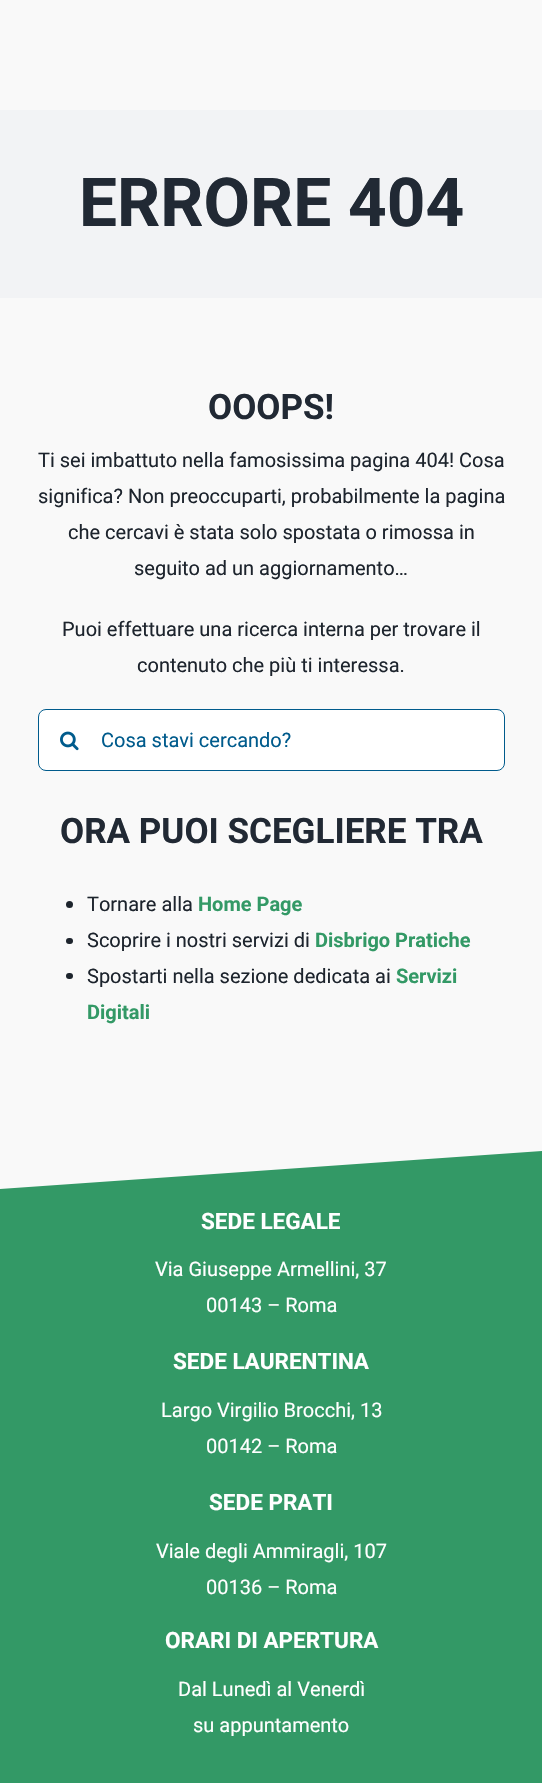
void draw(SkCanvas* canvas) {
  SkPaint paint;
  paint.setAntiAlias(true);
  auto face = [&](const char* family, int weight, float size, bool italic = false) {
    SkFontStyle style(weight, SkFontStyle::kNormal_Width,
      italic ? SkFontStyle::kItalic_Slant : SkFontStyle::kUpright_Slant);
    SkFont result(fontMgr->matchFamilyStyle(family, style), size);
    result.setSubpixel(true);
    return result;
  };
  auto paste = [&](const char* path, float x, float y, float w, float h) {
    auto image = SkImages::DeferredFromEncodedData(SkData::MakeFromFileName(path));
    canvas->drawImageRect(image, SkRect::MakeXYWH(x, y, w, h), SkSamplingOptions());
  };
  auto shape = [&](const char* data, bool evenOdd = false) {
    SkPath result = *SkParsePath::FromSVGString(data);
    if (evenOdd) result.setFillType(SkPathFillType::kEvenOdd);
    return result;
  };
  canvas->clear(0xfff9f9f9);
  paint.setColor(0xfff2f3f5);
  canvas->drawRect(SkRect::MakeXYWH(0, 110, 542, 188), paint);
  paint.setColor(0xffffffff);
  canvas->drawRoundRect(SkRect::MakeXYWH(38.5f, 709.5f, 466, 61), 7.5f, 7.5f, paint);
  paint.setStroke(true);
  paint.setStrokeWidth(1);
  paint.setColor(0xff005b8c);
  canvas->drawRoundRect(SkRect::MakeXYWH(38.5f, 709.5f, 466, 61), 7.5f, 7.5f, paint);
  paste("img/1.png", 60, 731, 19, 20);
  paint.setStroke(false);
  paint.setColor(0xff1d242d);
  canvas->drawCircle(69.5f, 904.5f, 3.5f, paint);
  canvas->drawRoundRect(SkRect::MakeXYWH(66, 938, 7, 6), 3, 3, paint);
  canvas->drawRoundRect(SkRect::MakeXYWH(66, 973, 7, 6), 3, 3, paint);
  paint.setColor(0xff339966);
  canvas->drawPath(shape("M542 1151L0 1189H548Z"), paint);
  canvas->drawRect(SkRect::MakeXYWH(0, 1189, 542, 594), paint);
  auto f0 = face("Roboto", 700, 67.5f);
  paint.setColor(0xff212934);
  canvas->drawString("ERRORE 404", 79, 226, f0, paint);
  auto f1 = face("Roboto", 700, 35);
  canvas->drawString("OOOPS!", 208, 419, f1, paint);
  auto f2 = face("Roboto", 400, 20);
  paint.setColor(0xff1d242d);
  {
    const struct { const char* s; float x, y; } items[] = {
      {"Ti sei imbattuto nella famosissima pagina 404! Cosa", 38, 467},
      {"significa? Non preoccuparti, probabilmente la pagina", 38, 503},
      {"che cercavi è stata solo spostata o rimossa in", 68, 539},
      {"seguito ad un aggiornamento…", 134, 575},
      {"Puoi effettuare una ricerca interna per trovare il", 62, 636},
      {"contenuto che più ti interessa.", 137, 672},
    };
    for (auto [s, x, y] : items) {
      canvas->drawString(s, x, y, f2, paint);
    }
  }
  paint.setColor(0xff005b8c);
  canvas->drawString("Cosa stavi cercando?", 101, 747, f2, paint);
  paint.setColor(0xff212934);
  canvas->drawString("ORA PUOI SCEGLIERE TRA", 60, 843, f1, paint);
  paint.setColor(0xff1d242d);
  canvas->drawString("Tornare alla", 87, 911, f2, paint);
  auto f3 = face("Roboto", 700, 20);
  paint.setColor(0xff339966);
  canvas->drawString("Home Page", 198, 911, f3, paint);
  paint.setColor(0xff1d242d);
  canvas->drawString("Scoprire i nostri servizi di", 87, 947, f2, paint);
  paint.setColor(0xff339966);
  canvas->drawString("Disbrigo Pratiche", 315, 947, f3, paint);
  paint.setColor(0xff1d242d);
  canvas->drawString("Spostarti nella sezione dedicata ai", 87, 983, f2, paint);
  paint.setColor(0xff339966);
  canvas->drawString("Servizi", 396, 983, f3, paint);
  canvas->drawString("Digitali", 87, 1019, f3, paint);
  auto f4 = face("Roboto", 700, 22.5f);
  paint.setColor(0xffffffff);
  canvas->drawString("SEDE LEGALE", 201, 1229, f4, paint);
  canvas->drawString("Via Giuseppe Armellini, 37", 155, 1276, f2, paint);
  canvas->drawString("00143 – Roma", 206, 1312, f2, paint);
  canvas->drawString("SEDE LAURENTINA", 173, 1369, f4, paint);
  canvas->drawString("Largo Virgilio Brocchi, 13", 161, 1417, f2, paint);
  canvas->drawString("00142 – Roma", 206, 1453, f2, paint);
  canvas->drawString("SEDE PRATI", 209, 1510, f4, paint);
  canvas->drawString("Viale degli Ammiragli, 107", 156, 1558, f2, paint);
  canvas->drawString("00136 – Roma", 206, 1594, f2, paint);
  canvas->drawString("ORARI DI APERTURA", 165, 1648, f4, paint);
  canvas->drawString("Dal Lunedì al Venerdì", 178, 1696, f2, paint);
  canvas->drawString("su appuntamento", 193, 1732, f2, paint);
}
